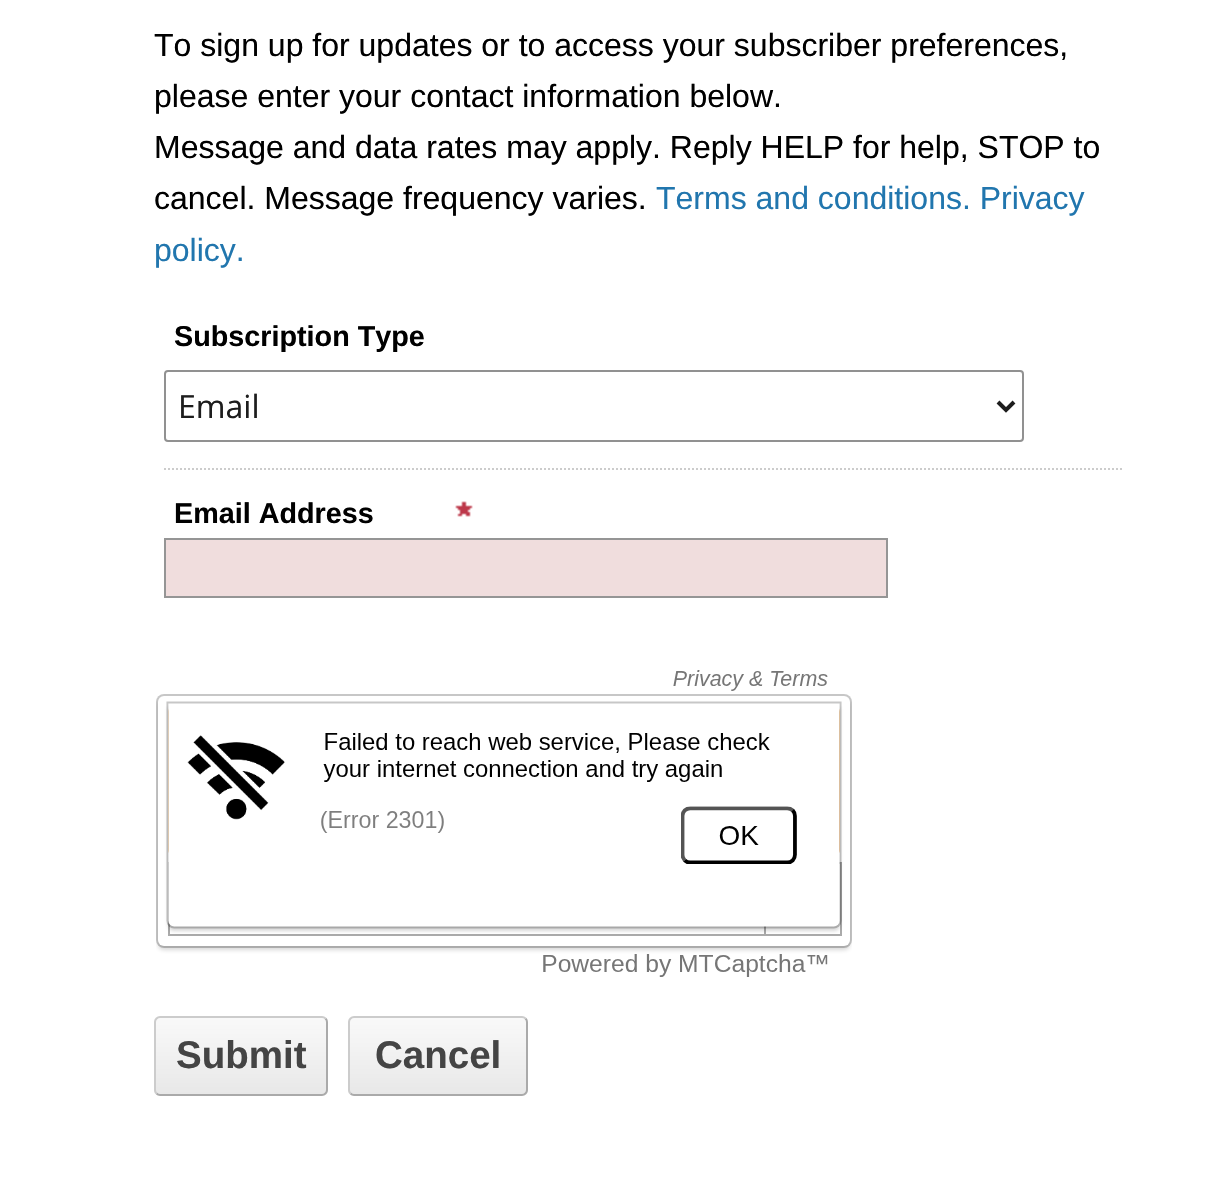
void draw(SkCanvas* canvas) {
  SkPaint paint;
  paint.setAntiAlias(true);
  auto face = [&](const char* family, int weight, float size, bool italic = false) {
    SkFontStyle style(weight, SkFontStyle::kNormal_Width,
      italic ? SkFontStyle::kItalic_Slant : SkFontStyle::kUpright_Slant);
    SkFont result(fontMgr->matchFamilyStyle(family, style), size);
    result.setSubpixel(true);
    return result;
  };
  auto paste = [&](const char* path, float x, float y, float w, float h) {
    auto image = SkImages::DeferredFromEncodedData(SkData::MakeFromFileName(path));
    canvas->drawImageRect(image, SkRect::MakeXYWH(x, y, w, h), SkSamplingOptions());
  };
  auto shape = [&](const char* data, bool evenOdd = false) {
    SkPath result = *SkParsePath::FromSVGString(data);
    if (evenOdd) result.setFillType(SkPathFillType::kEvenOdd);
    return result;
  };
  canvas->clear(0xffffffff);
  paint.setStroke(true);
  paint.setStrokeWidth(2);
  paint.setColor(0xff919191);
  canvas->drawRoundRect(SkRect::MakeXYWH(165, 371, 858, 70), 3, 3, paint);
  paint.setStrokeWidth(4);
  paint.setColor(0xff1d1d1d);
  canvas->drawPath(shape("M998 402L1006 410L1014 402"), paint);
  paint.setStrokeWidth(2);
  paint.setColor(0xffcccccc);
  paint.setPathEffect(SkDashPathEffect::Make({{2, 2}}, 0));
  canvas->drawPath(shape("M164 469H1124"), paint);
  paint.setPathEffect(nullptr);
  paste("img/1.png", 455, 501, 18, 16);
  paint.setStroke(false);
  paint.setColor(0xfff0dddd);
  canvas->drawRect(SkRect::MakeXYWH(165, 539, 722, 58), paint);
  paint.setStroke(true);
  paint.setColor(0xff959595);
  canvas->drawRect(SkRect::MakeXYWH(165, 539, 722, 58), paint);
  paste("img/2.png", 156, 670, 696, 307);
  canvas->save();
  canvas->clipPath(shape("M160 1016H322C325.5 1016 328 1018.5 328 1022V1090C328 1093.5 325.5 1096 322 1096H160C156.5 1096 154 1093.5 154 1090V1022C154 1018.5 156.5 1016 160 1016Z"), true);
  paint.setStroke(false);
  {
    const SkColor colors[] = {0xfff9f9f9, 0xffe8e8e8};
    const float stops[] = {0, 1};
    const SkPoint ends[] = {{241, 1018}, {241, 1094}};
    paint.setShader(SkGradientShader::MakeLinear(ends, colors, stops, 2, SkTileMode::kClamp));
    paint.setAlpha(255);
  }
  canvas->drawRect(SkRect::MakeXYWH(154, 1018, 174, 76), paint);
  canvas->restore();
  paint.setStroke(true);
  paint.setShader(nullptr);
  paint.setColor(0xffaaaaaa);
  canvas->drawPath(shape("M325.5 1018.5C326.5 1019.5 327 1020.5 327 1022V1090C327 1091.5 326.5 1092.5 325.5 1093.5C324.5 1094.5 323.5 1095 322 1095H160C158.5 1095 157.5 1094.5 156.5 1093.5"), paint);
  paint.setColor(0xffcccccc);
  canvas->drawPath(shape("M156.5 1093.5C155.5 1092.5 155 1091.5 155 1090V1022C155 1020.5 155.5 1019.5 156.5 1018.5C157.5 1017.5 158.5 1017 160 1017H322C323.5 1017 324.5 1017.5 325.5 1018.5"), paint);
  canvas->save();
  canvas->clipPath(shape("M354 1016H522C525.5 1016 528 1018.5 528 1022V1090C528 1093.5 525.5 1096 522 1096H354C350.5 1096 348 1093.5 348 1090V1022C348 1018.5 350.5 1016 354 1016Z"), true);
  paint.setStroke(false);
  {
    const SkColor colors[] = {0xfff9f9f9, 0xffe8e8e8};
    const float stops[] = {0, 1};
    const SkPoint ends[] = {{438, 1018}, {438, 1094}};
    paint.setShader(SkGradientShader::MakeLinear(ends, colors, stops, 2, SkTileMode::kClamp));
    paint.setAlpha(255);
  }
  canvas->drawRect(SkRect::MakeXYWH(348, 1018, 180, 76), paint);
  canvas->restore();
  paint.setStroke(true);
  paint.setShader(nullptr);
  paint.setColor(0xffaaaaaa);
  canvas->drawPath(shape("M525.5 1018.5C526.5 1019.5 527 1020.5 527 1022V1090C527 1091.5 526.5 1092.5 525.5 1093.5C524.5 1094.5 523.5 1095 522 1095H354C352.5 1095 351.5 1094.5 350.5 1093.5"), paint);
  paint.setColor(0xffcccccc);
  canvas->drawPath(shape("M350.5 1093.5C349.5 1092.5 349 1091.5 349 1090V1022C349 1020.5 349.5 1019.5 350.5 1018.5C351.5 1017.5 352.5 1017 354 1017H522C523.5 1017 524.5 1017.5 525.5 1018.5"), paint);
  auto f0 = face("Liberation Sans", 400, 32);
  paint.setStroke(false);
  paint.setColor(0xff000000);
  {
    const struct { const char* s; float x, y; } items[] = {
      {"To sign up for updates or to access your subscriber preferences,", 154, 56},
      {"please enter your contact information below.", 154, 107},
      {"Message and data rates may apply. Reply HELP for help, STOP to", 154, 158},
      {"cancel. Message frequency varies.", 154, 209},
    };
    for (auto [s, x, y] : items) {
      canvas->drawString(s, x, y, f0, paint);
    }
  }
  paint.setColor(0xff2176ae);
  canvas->drawString("Terms and conditions. Privacy", 656, 209, f0, paint);
  canvas->drawString("policy.", 154, 261, f0, paint);
  auto f1 = face("Liberation Sans", 700, 28.75f);
  paint.setColor(0xff000000);
  canvas->drawString("Subscription Type", 174, 346, f1, paint);
  auto f2 = face("Open Sans", 400, 32);
  paint.setColor(0xff1d1d1d);
  canvas->drawString("Email", 178, 418, f2, paint);
  paint.setColor(0xff000000);
  canvas->drawString("Email Address", 174, 523, f1, paint);
  auto f3 = face("Liberation Sans", 700, 38.5f);
  paint.setColor(0xff444444);
  canvas->drawString("Submit", 176, 1068, f3, paint);
  canvas->drawString("Cancel", 375, 1068, f3, paint);
}
